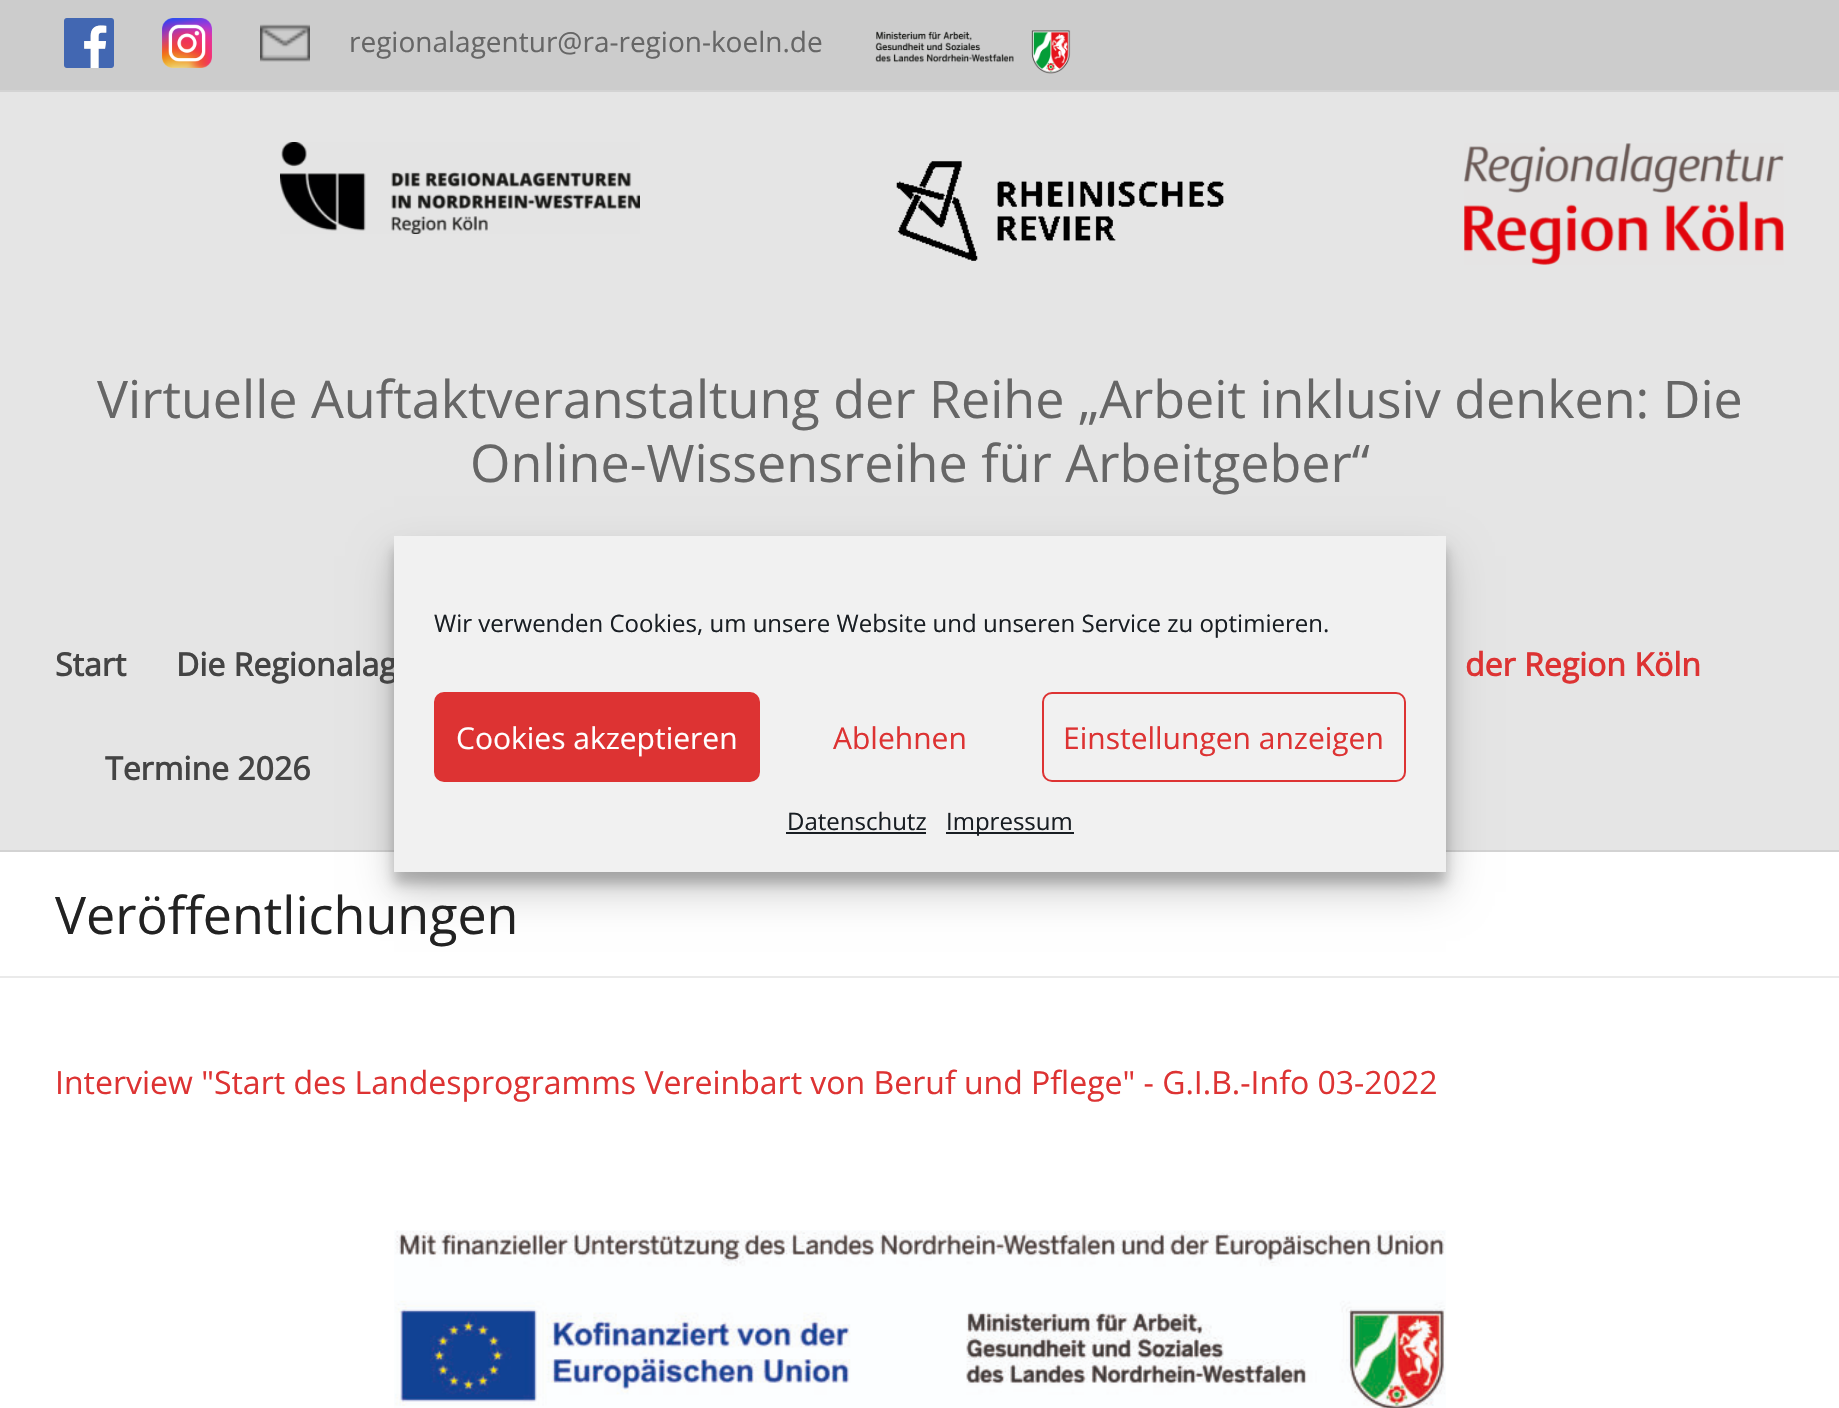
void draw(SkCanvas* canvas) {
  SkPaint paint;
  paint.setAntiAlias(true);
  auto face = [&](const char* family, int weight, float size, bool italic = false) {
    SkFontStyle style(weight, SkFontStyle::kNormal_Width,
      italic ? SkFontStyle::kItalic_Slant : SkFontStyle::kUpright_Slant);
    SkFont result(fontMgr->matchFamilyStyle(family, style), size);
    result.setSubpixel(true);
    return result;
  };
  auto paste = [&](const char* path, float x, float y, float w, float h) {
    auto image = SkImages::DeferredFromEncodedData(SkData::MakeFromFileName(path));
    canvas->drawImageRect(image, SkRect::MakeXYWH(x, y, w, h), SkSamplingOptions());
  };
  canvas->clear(0xffffffff);
  paint.setColor(0xffcccccc);
  canvas->drawRect(SkRect::MakeXYWH(0, 0, 1839, 90), paint);
  paint.setColor(0xffd3d3d3);
  canvas->drawRect(SkRect::MakeXYWH(0, 90, 1839, 2), paint);
  paste("img/1.png", 64, 18, 50, 50);
  paste("img/2.png", 162, 18, 50, 50);
  paste("img/3.png", 260, 24, 50, 38);
  paste("img/4.png", 875, 30, 196, 44);
  paint.setColor(0xffe5e5e5);
  canvas->drawRect(SkRect::MakeXYWH(0, 92, 1839, 758), paint);
  paint.setColor(0xffd3d3d3);
  canvas->drawRect(SkRect::MakeXYWH(0, 850, 1839, 2), paint);
  paste("img/5.png", 280, 142, 360, 92);
  paste("img/6.png", 896, 161, 328, 100);
  paste("img/7.png", 1464, 143, 320, 122);
  paint.setColor(0xffeaeaea);
  canvas->drawRect(SkRect::MakeXYWH(0, 976, 1839, 2), paint);
  paste("img/8.png", 394, 1230, 1052, 178);
  paint.setColor(0x3b000000);
  paint.setMaskFilter(SkMaskFilter::MakeBlur(kNormal_SkBlurStyle, 6));
  canvas->drawRect(SkRect::MakeXYWH(394, 548, 1052, 336), paint);
  paint.setMaskFilter(nullptr);
  paint.setColor(0x30000000);
  paint.setMaskFilter(SkMaskFilter::MakeBlur(kNormal_SkBlurStyle, 20));
  canvas->drawRect(SkRect::MakeXYWH(394, 556, 1052, 336), paint);
  paint.setMaskFilter(nullptr);
  auto f0 = face("Open Sans", 400, 28);
  paint.setColor(0xff666666);
  canvas->drawString("regionalagentur@ra-region-koeln.de", 349, 52, f0, paint);
  auto f1 = face("Open Sans", 400, 52);
  canvas->drawString("Virtuelle Auftaktveranstaltung der Reihe „Arbeit inklusiv denken: Die", 97, 418, f1, paint);
  canvas->drawString("Online-Wissensreihe für Arbeitgeber“", 470, 482, f1, paint);
  auto f2 = face("Open Sans", 700, 32);
  paint.setColor(0xff444444);
  canvas->drawString("Start", 55, 676, f2, paint);
  canvas->drawString("Die Regionalag", 176, 676, f2, paint);
  paint.setColor(0xffdd3333);
  canvas->drawString("der Region Köln", 1465, 676, f2, paint);
  paint.setColor(0xff444444);
  canvas->drawString("Termine 2026", 105, 780, f2, paint);
  paint.setColor(0xff222222);
  canvas->drawString("Veröffentlichungen", 55, 934, f1, paint);
  auto f3 = face("Open Sans", 400, 32);
  paint.setColor(0xffdd3333);
  canvas->drawString("Interview \"Start des Landesprogramms Vereinbart von Beruf und Pflege\" - G.I.B.-Info 03-2022", 55, 1094, f3, paint);
  paint.setColor(0xfff1f1f1);
  canvas->drawRect(SkRect::MakeXYWH(394, 536, 1052, 336), paint);
  auto f4 = face("Open Sans", 400, 24);
  paint.setColor(0xff191e23);
  canvas->drawString("Wir verwenden Cookies, um unsere Website und unseren Service zu optimieren.", 434, 632, f4, paint);
  paint.setColor(0xffdd3333);
  canvas->drawRoundRect(SkRect::MakeXYWH(435, 693, 324, 88), 9, 9, paint);
  paint.setStroke(true);
  paint.setStrokeWidth(2);
  canvas->drawRoundRect(SkRect::MakeXYWH(435, 693, 324, 88), 9, 9, paint);
  auto f5 = face("Open Sans", 400, 30);
  paint.setStroke(false);
  paint.setColor(0xffffffff);
  canvas->drawString("Cookies akzeptieren", 456, 749, f5, paint);
  paint.setColor(0xffdd3333);
  canvas->drawString("Ablehnen", 833, 749, f5, paint);
  paint.setStroke(true);
  canvas->drawRoundRect(SkRect::MakeXYWH(1043, 693, 362, 88), 9, 9, paint);
  paint.setStroke(false);
  canvas->drawString("Einstellungen anzeigen", 1063, 749, f5, paint);
  paint.setColor(0xff191e23);
  canvas->drawString("Datenschutz", 787, 830, f4, paint);
  canvas->drawRect(SkRect::MakeXYWH(786, 832, 140, 2), paint);
  canvas->drawRect(SkRect::MakeXYWH(946, 832, 128, 2), paint);
  canvas->drawString("Impressum", 946, 830, f4, paint);
}
